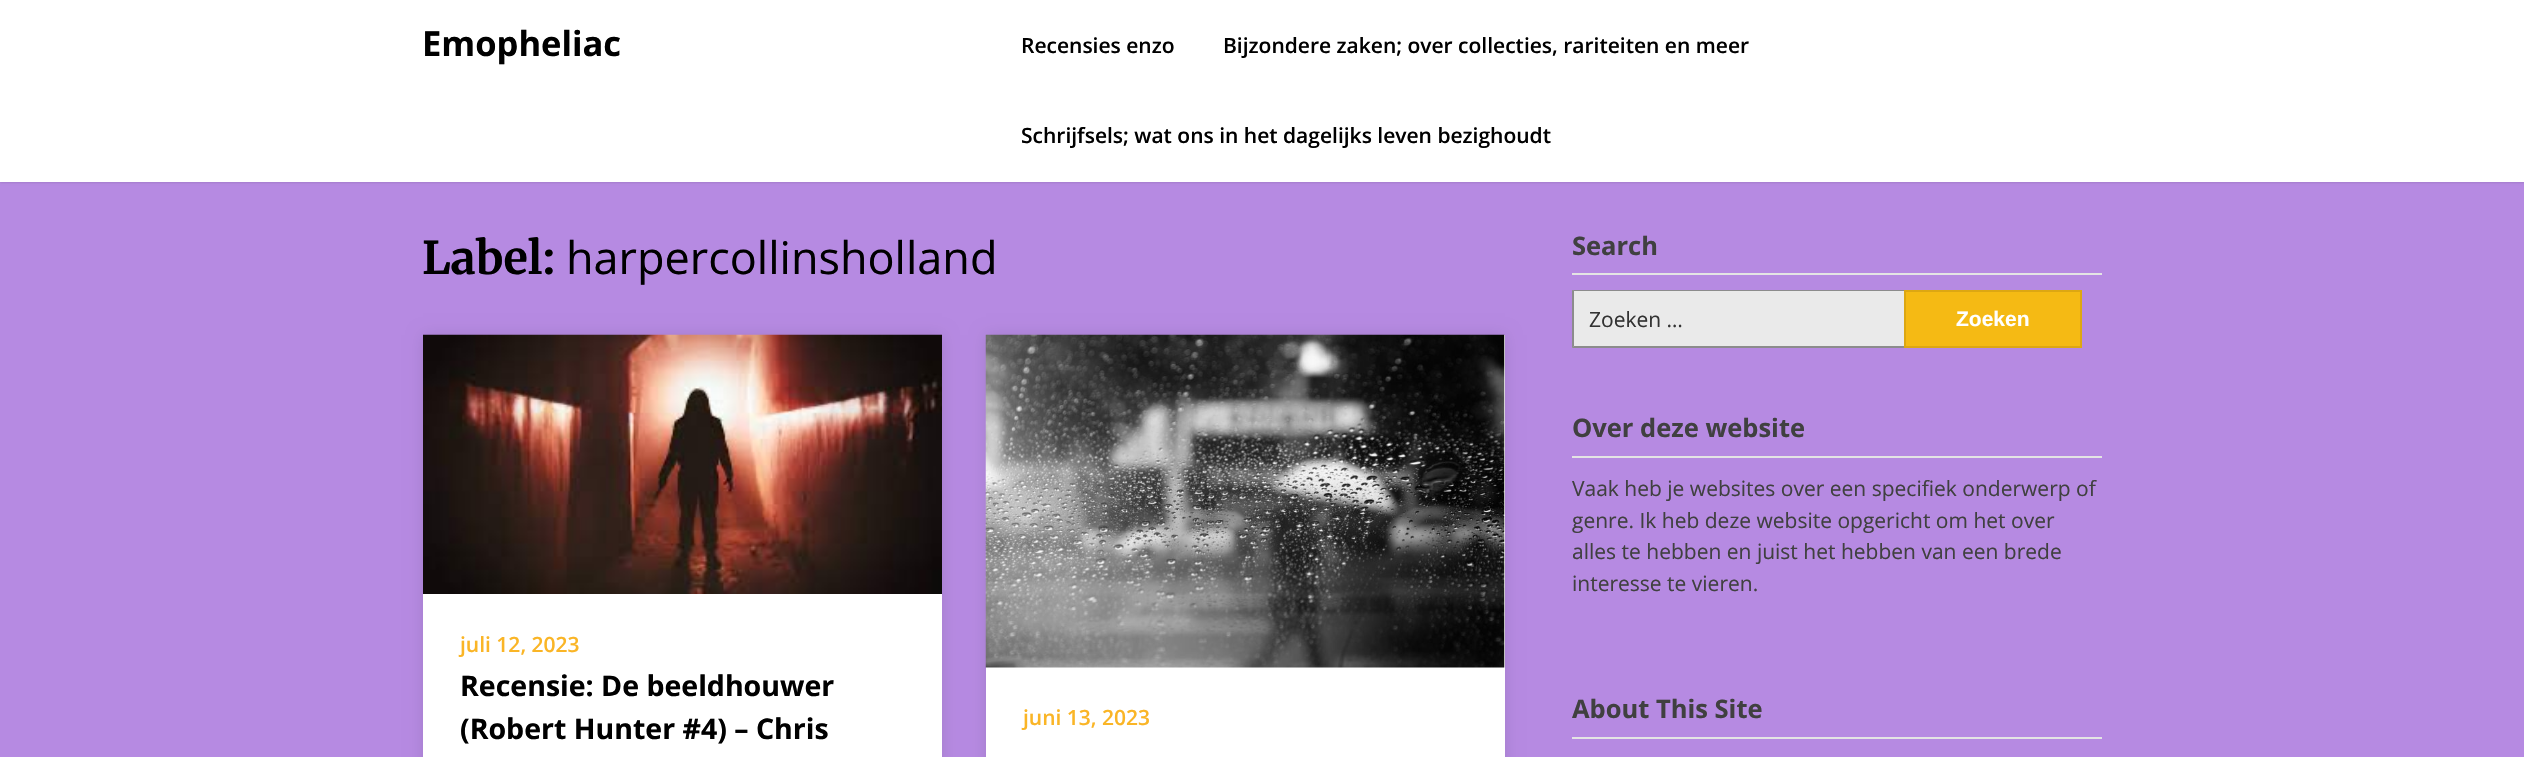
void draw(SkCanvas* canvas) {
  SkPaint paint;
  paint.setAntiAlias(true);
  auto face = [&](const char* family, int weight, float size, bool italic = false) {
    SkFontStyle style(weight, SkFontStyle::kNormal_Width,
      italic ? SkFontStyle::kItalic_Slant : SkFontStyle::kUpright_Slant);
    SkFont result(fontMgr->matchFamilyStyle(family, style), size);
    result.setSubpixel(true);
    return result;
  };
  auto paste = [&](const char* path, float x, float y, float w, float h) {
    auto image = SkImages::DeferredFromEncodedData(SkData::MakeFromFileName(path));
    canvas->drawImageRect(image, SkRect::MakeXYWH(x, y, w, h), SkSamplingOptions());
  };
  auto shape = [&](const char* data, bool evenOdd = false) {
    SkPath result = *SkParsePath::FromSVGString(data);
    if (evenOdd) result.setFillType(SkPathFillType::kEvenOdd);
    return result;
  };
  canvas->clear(0xffb68ae2);
  paint.setColor(0x1a000000);
  paint.setMaskFilter(SkMaskFilter::MakeBlur(kNormal_SkBlurStyle, 1));
  canvas->drawRect(SkRect::MakeXYWH(0, 2, 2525, 181), paint);
  paint.setMaskFilter(nullptr);
  paint.setColor(0xffffffff);
  canvas->drawRect(SkRect::MakeXYWH(0, 0, 2524, 182), paint);
  paint.setColor(0x1a000000);
  paint.setMaskFilter(SkMaskFilter::MakeBlur(kNormal_SkBlurStyle, 7.5f));
  canvas->drawRect(SkRect::MakeXYWH(423, 335, 519, 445), paint);
  paint.setMaskFilter(nullptr);
  paint.setColor(0xffffffff);
  canvas->drawRect(SkRect::MakeXYWH(423, 594, 519, 163), paint);
  paste("img/1.png", 423, 334, 519, 260);
  paint.setColor(0x1a000000);
  paint.setMaskFilter(SkMaskFilter::MakeBlur(kNormal_SkBlurStyle, 7.5f));
  canvas->drawRect(SkRect::MakeXYWH(986, 335, 519, 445), paint);
  paint.setMaskFilter(nullptr);
  paint.setColor(0xffffffff);
  canvas->drawRect(SkRect::MakeXYWH(986, 335, 519, 422), paint);
  paste("img/2.png", 985, 334, 520, 334);
  paint.setColor(0xffe4e4e4);
  canvas->drawRect(SkRect::MakeXYWH(1572, 273, 530, 2), paint);
  paint.setColor(0xffeaeaea);
  canvas->drawRect(SkRect::MakeXYWH(1572, 290, 332, 58), paint);
  paint.setColor(0xff8c8c8c);
  canvas->drawPath(shape("M1572 290H1904V291H1574Z"), paint);
  canvas->drawPath(shape("M1904 348H1572L1574 346H1904Z"), paint);
  paint.setColor(0x66000000);
  canvas->drawPath(shape("M1572 348V290L1574 291V346Z"), paint);
  paint.setColor(0xfff5ba14);
  canvas->drawRect(SkRect::MakeXYWH(1905, 291, 176, 56), paint);
  paint.setStroke(true);
  paint.setStrokeWidth(2);
  paint.setColor(0xffdda712);
  canvas->drawRect(SkRect::MakeXYWH(1905, 291, 176, 56), paint);
  paint.setStroke(false);
  paint.setColor(0xffe4e4e4);
  canvas->drawRect(SkRect::MakeXYWH(1572, 456, 530, 2), paint);
  canvas->drawRect(SkRect::MakeXYWH(1572, 737, 530, 2), paint);
  auto f0 = face("Open Sans", 700, 34.5f);
  paint.setColor(0xff000000);
  canvas->drawString("Emopheliac", 422, 56, f0, paint);
  auto f1 = face("Open Sans", 600, 21);
  {
    const struct { const char* s; float x, y; } items[] = {
      {"Recensies enzo", 1021, 53},
      {"Bijzondere zaken; over collecties, rariteiten en meer", 1223, 53},
      {"Schrijfsels; wat ons in het dagelijks leven bezighoudt", 1021, 143},
    };
    for (auto [s, x, y] : items) {
      canvas->drawString(s, x, y, f1, paint);
    }
  }
  auto f2 = face("Merriweather", 700, 45);
  canvas->drawString("Label:", 422, 274, f2, paint);
  auto f3 = face("Open Sans", 400, 45);
  canvas->drawString("harpercollinsholland", 566, 274, f3, paint);
  paint.setColor(0xfffab526);
  canvas->drawString("juli 12, 2023", 460, 652, f1, paint);
  auto f4 = face("Open Sans", 700, 28.5f);
  paint.setColor(0xff000000);
  canvas->drawString("Recensie: De beeldhouwer", 460, 696, f4, paint);
  canvas->drawString("(Robert Hunter #4) – Chris", 460, 739, f4, paint);
  paint.setColor(0xfffab526);
  canvas->drawString("juni 13, 2023", 1023, 725, f1, paint);
  auto f5 = face("Open Sans", 700, 25.5f);
  paint.setColor(0xff404040);
  canvas->drawString("Search", 1572, 255, f5, paint);
  auto f6 = face("Open Sans", 400, 21);
  paint.setColor(0xff333333);
  canvas->drawString("Zoeken …", 1589, 327, f6, paint);
  auto f7 = face("Liberation Sans", 700, 21);
  paint.setColor(0xffffffff);
  canvas->drawString("Zoeken", 1956, 326, f7, paint);
  paint.setColor(0xff404040);
  canvas->drawString("Over deze website", 1572, 437, f5, paint);
  {
    const struct { const char* s; float x, y; } items[] = {
      {"Vaak heb je websites over een specifiek onderwerp of", 1572, 496},
      {"genre. Ik heb deze website opgericht om het over", 1572, 528},
      {"alles te hebben en juist het hebben van een brede", 1572, 559},
      {"interesse te vieren.", 1572, 591},
    };
    for (auto [s, x, y] : items) {
      canvas->drawString(s, x, y, f6, paint);
    }
  }
  canvas->drawString("About This Site", 1572, 718, f5, paint);
}
